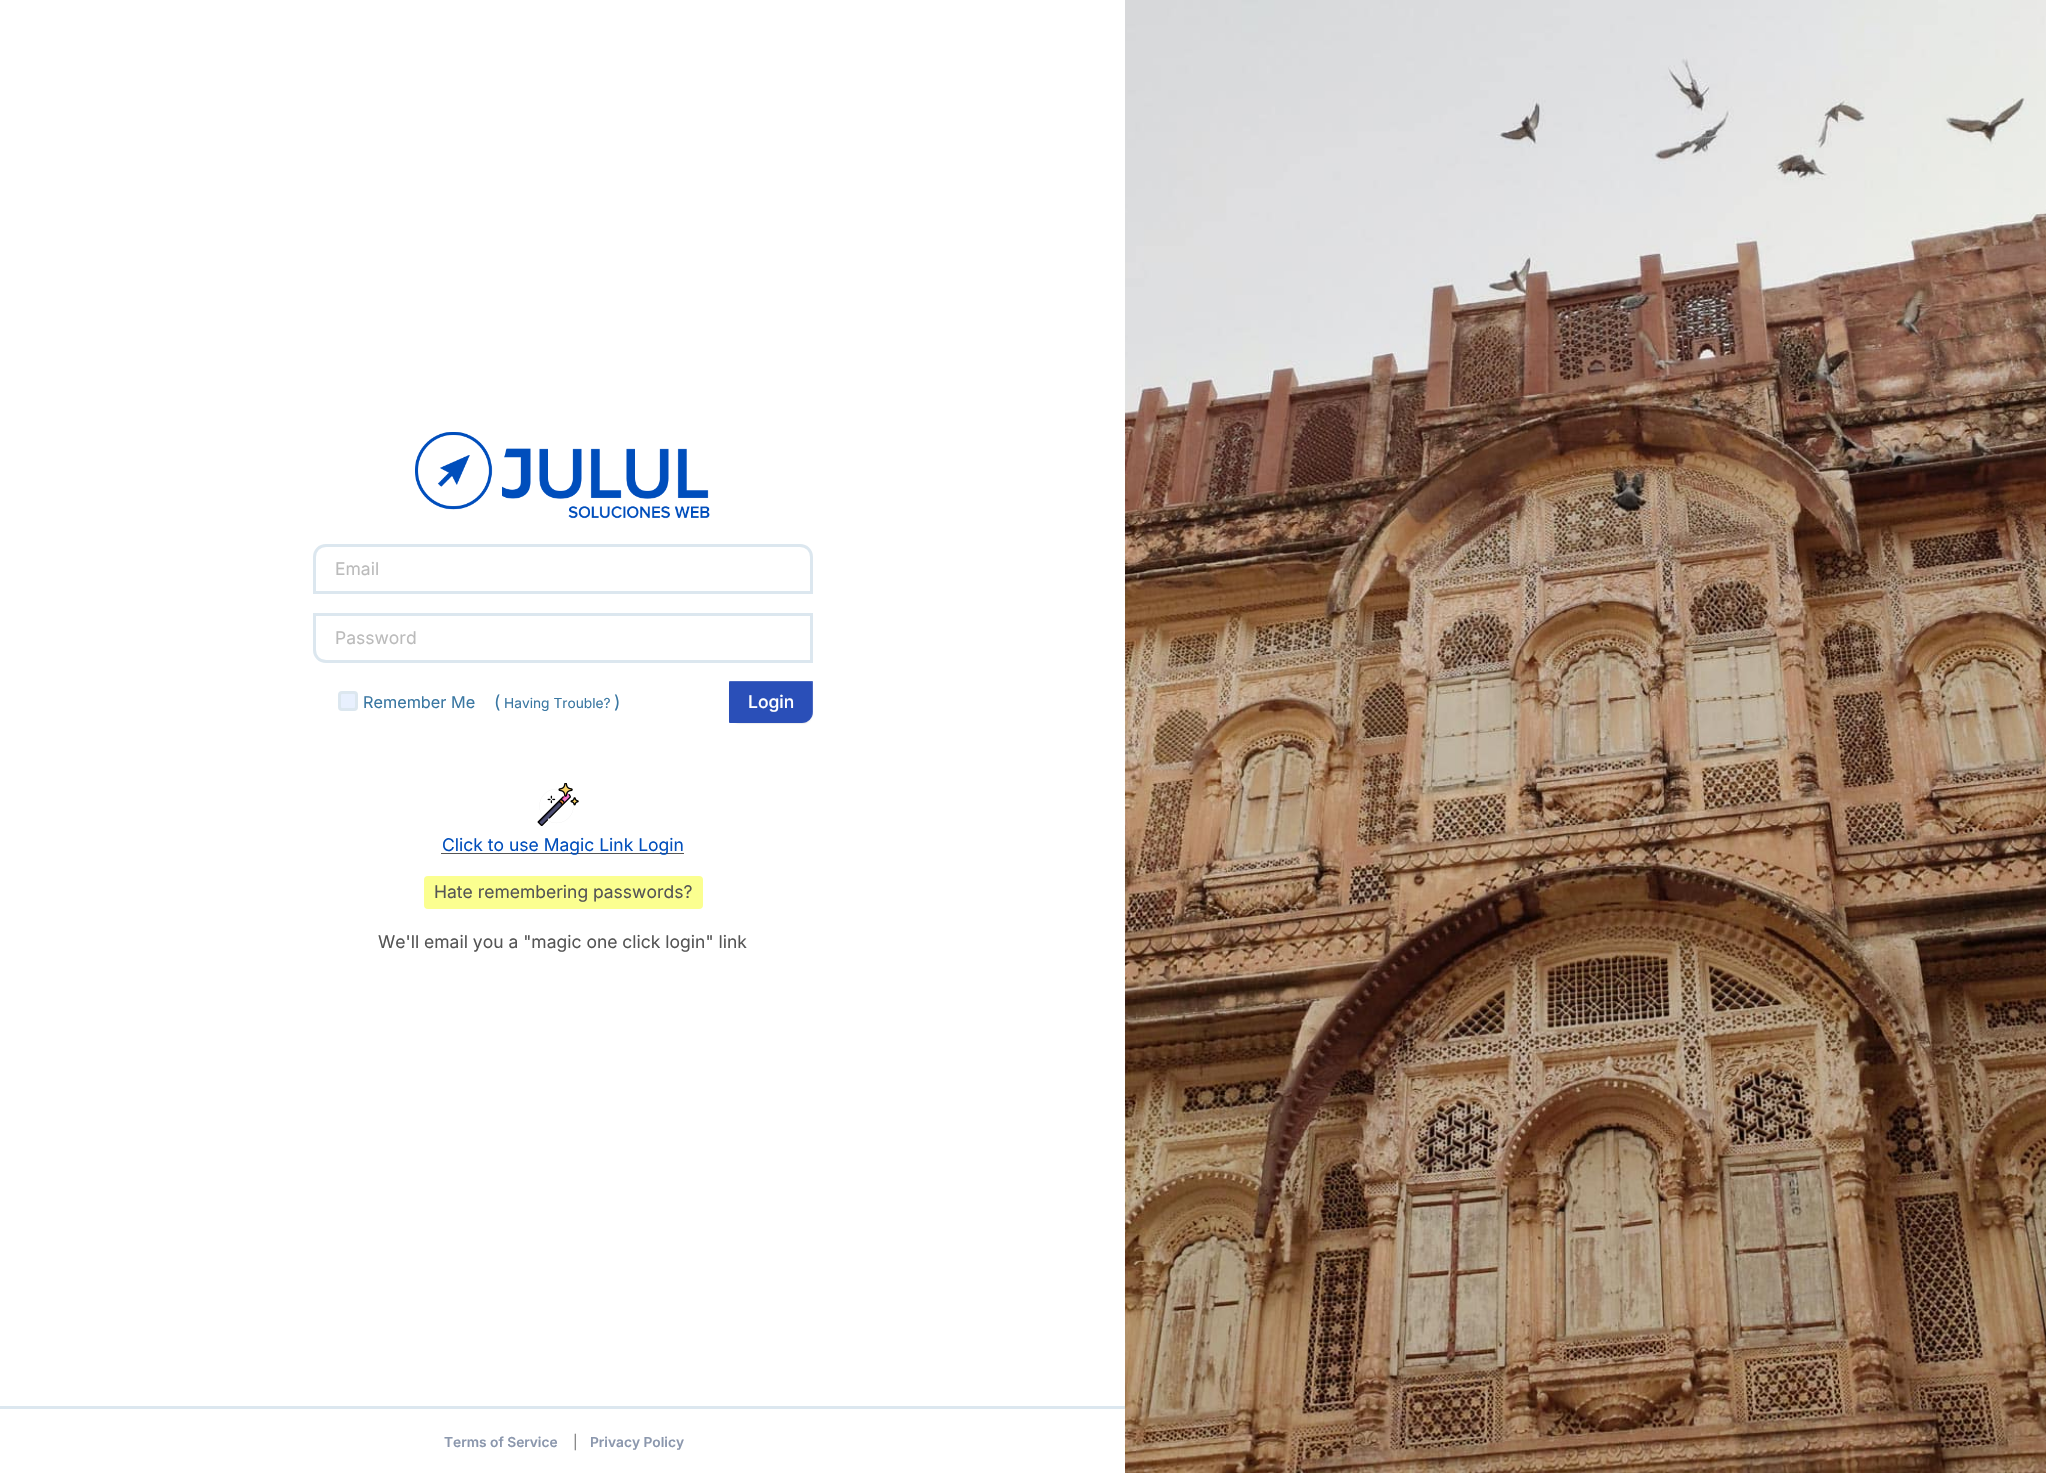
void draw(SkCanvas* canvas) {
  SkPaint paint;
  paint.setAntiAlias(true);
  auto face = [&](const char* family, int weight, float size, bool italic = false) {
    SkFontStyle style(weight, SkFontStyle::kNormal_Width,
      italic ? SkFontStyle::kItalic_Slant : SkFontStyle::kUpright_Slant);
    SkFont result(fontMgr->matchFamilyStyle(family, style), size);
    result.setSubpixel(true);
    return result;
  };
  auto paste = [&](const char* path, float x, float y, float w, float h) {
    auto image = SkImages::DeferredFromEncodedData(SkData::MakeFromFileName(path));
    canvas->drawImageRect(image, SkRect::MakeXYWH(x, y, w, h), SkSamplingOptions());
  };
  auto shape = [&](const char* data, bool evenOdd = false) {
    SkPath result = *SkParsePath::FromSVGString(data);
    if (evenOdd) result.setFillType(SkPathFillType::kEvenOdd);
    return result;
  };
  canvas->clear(0xffffffff);
  paste("img/1.png", 415, 432, 295, 87);
  paint.setStroke(true);
  paint.setStrokeWidth(3);
  paint.setColor(0xffdce7ef);
  canvas->drawPath(shape("M326 545.5H800C806.5 545.5 811.5 550.5 811.5 557V592.5H314.5V557C314.5 550.5 319.5 545.5 326 545.5Z"), paint);
  canvas->drawPath(shape("M314.5 614.5H811.5V661.5H326C319.5 661.5 314.5 656.5 314.5 650Z"), paint);
  paint.setStroke(false);
  paint.setColor(0xffe8f0fe);
  canvas->drawRoundRect(SkRect::MakeXYWH(339.5f, 692.5f, 17, 17), 2.5f, 2.5f, paint);
  paint.setStroke(true);
  paint.setColor(0xffdce7ef);
  canvas->drawRoundRect(SkRect::MakeXYWH(339.5f, 692.5f, 17, 17), 2.5f, 2.5f, paint);
  paint.setStroke(false);
  paint.setColor(0x12000000);
  paint.setMaskFilter(SkMaskFilter::MakeBlur(kNormal_SkBlurStyle, 0.5f));
  canvas->drawRoundRect(SkRect::MakeXYWH(729, 683, 84, 41), 11, 11, paint);
  paint.setMaskFilter(nullptr);
  paint.setColor(0xff2a4fb8);
  canvas->drawPath(shape("M730 681H812C812.5 681 813 681.5 813 682V712C813 718 808 723 802 723H730C729.5 723 729 722.5 729 722V682C729 681.5 729.5 681 730 681Z"), paint);
  paint.setColor(0x26ffffff);
  canvas->drawPath(shape("M730 682H811C812 682 812 683 812 684V712C812 716 811 719 809 721C811 719 813 716 813 712V682C813 681 813 681 812 681H730C729 681 729 681 729 682V684C729 683 729 682 730 682Z"), paint);
  paste("img/2.png", 537, 783, 42, 43);
  paint.setColor(0xff555555);
  canvas->drawRect(SkRect::MakeXYWH(441, 853, 243, 1), paint);
  paint.setColor(0xfffbff90);
  canvas->drawRoundRect(SkRect::MakeXYWH(424, 876, 279, 33), 4, 4, paint);
  paint.setColor(0xffdce7ef);
  canvas->drawRect(SkRect::MakeXYWH(0, 1406, 1125, 3), paint);
  paste("img/3.png", 1125, 0, 921, 58);
  paste("img/4.png", 1125, 58, 921, 1415);
  auto f0 = face("Inter", 400, 17.5f);
  paint.setColor(0xffbbbbbb);
  canvas->drawString("Email", 335, 575, f0, paint);
  canvas->drawString("Password", 335, 644, f0, paint);
  auto f1 = face("Inter", 400, 16.25f);
  paint.setColor(0xff3a77a2);
  canvas->drawString("Remember Me", 363, 708, f1, paint);
  canvas->drawString("(", 494, 708, f0, paint);
  auto f2 = face("Inter", 400, 13.75f);
  canvas->drawString("Having Trouble?", 504, 708, f2, paint);
  canvas->drawString(")", 614, 708, f0, paint);
  auto f3 = face("Inter", 500, 17.5f);
  paint.setColor(0xffffffff);
  canvas->drawString("Login", 748, 708, f3, paint);
  paint.setColor(0xff004ebc);
  canvas->drawString("Click to use Magic Link Login", 442, 851, f0, paint);
  paint.setColor(0xff555555);
  canvas->drawString("Hate remembering passwords?", 434, 898, f0, paint);
  canvas->drawString("We'll email you a \"magic one click login\" link", 378, 948, f0, paint);
  auto f4 = face("Inter", 600, 13.75f);
  paint.setColor(0xff8b97ad);
  canvas->drawString("Terms of Service", 444, 1447, f4, paint);
  paint.setColor(0xff777777);
  canvas->drawString("|", 573, 1447, f2, paint);
  paint.setColor(0xff8b97ad);
  canvas->drawString("Privacy Policy", 590, 1447, f4, paint);
}
